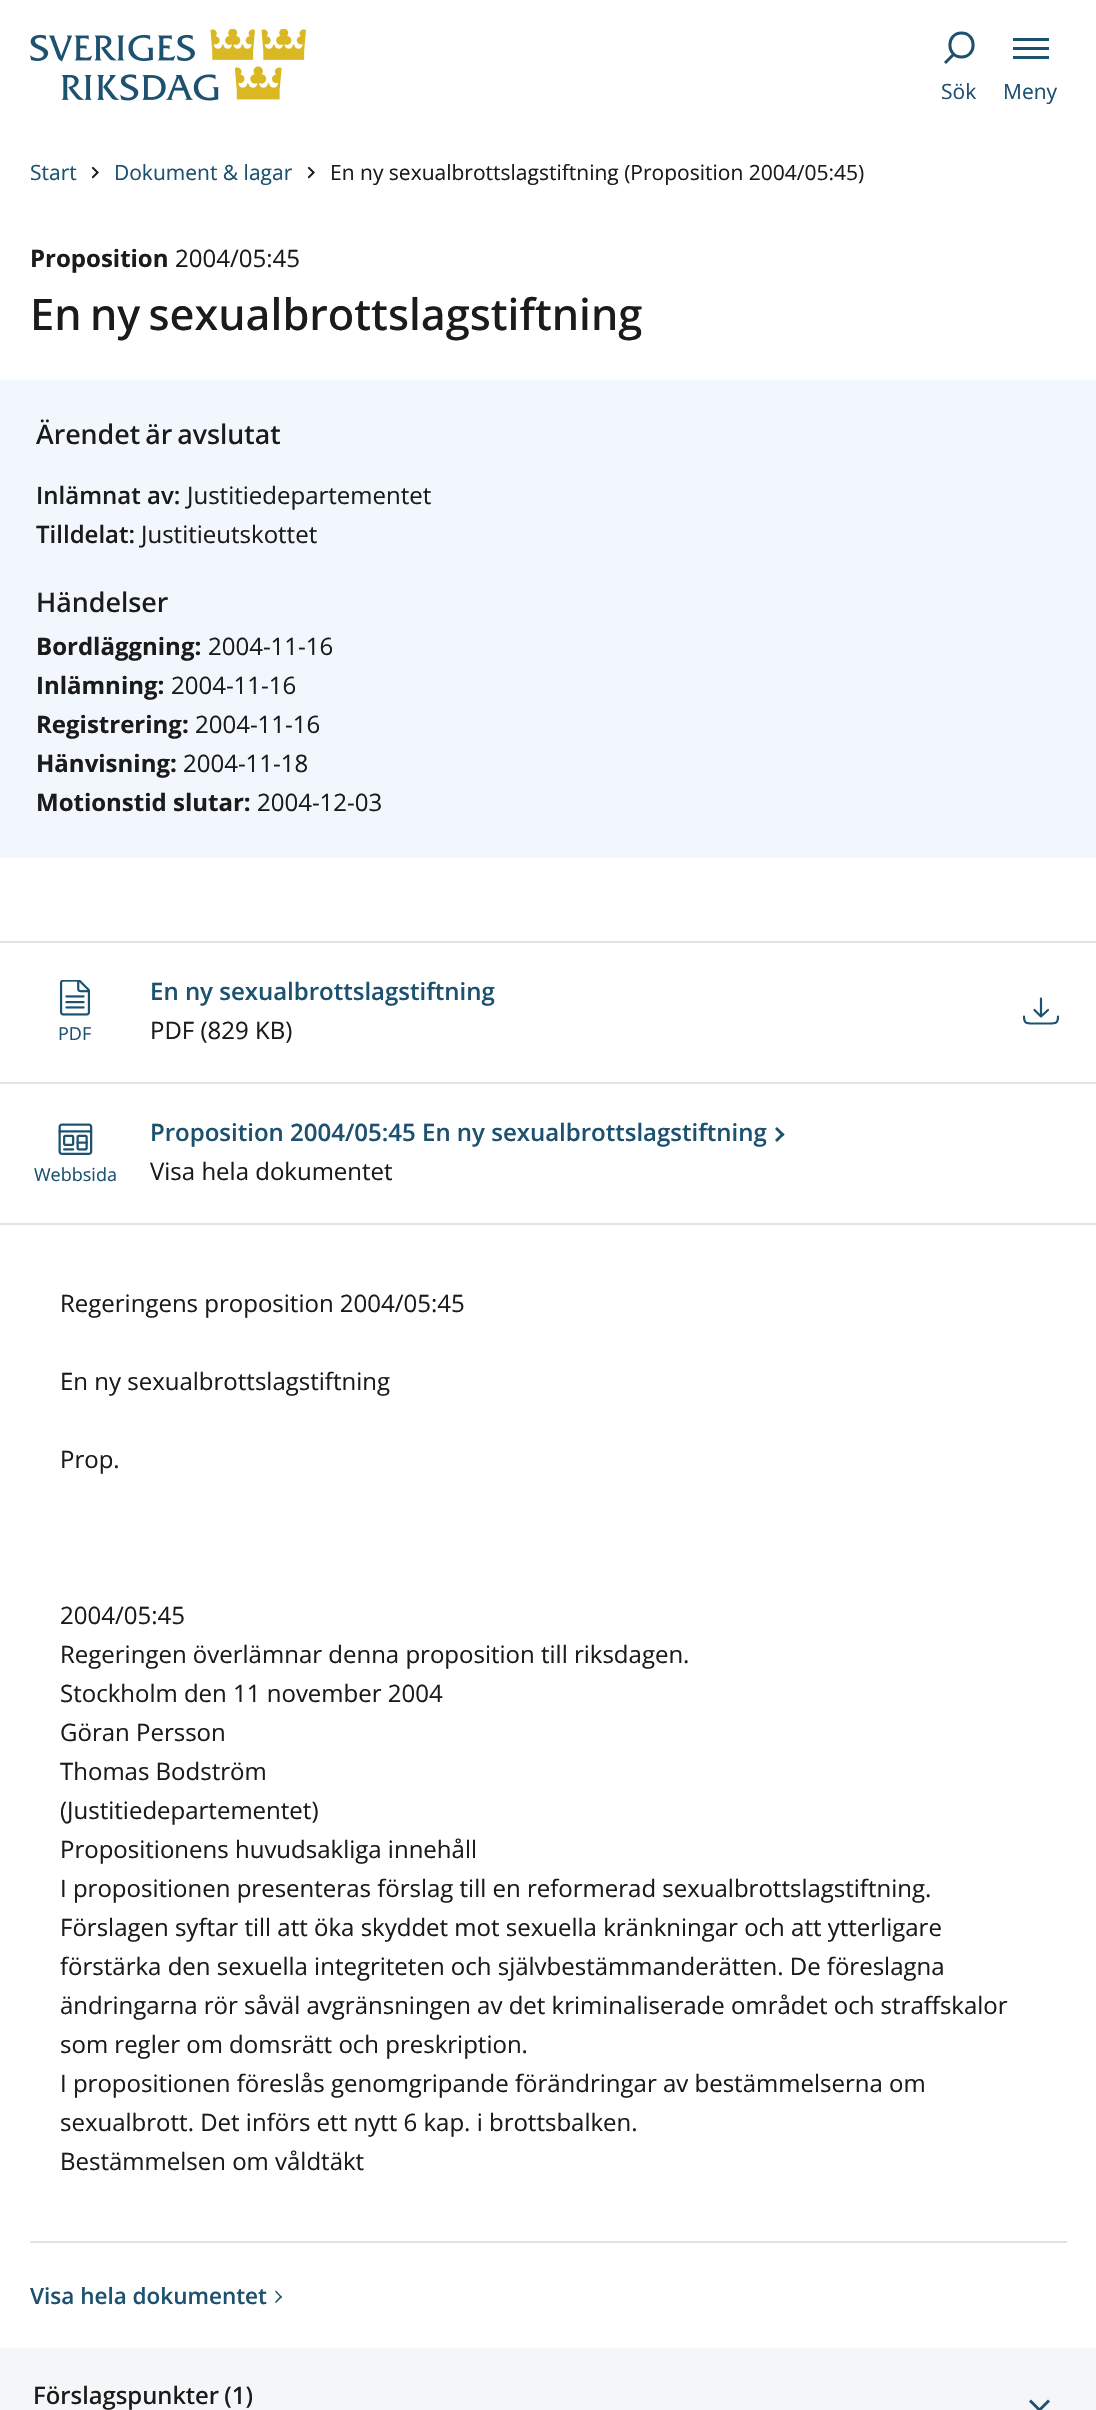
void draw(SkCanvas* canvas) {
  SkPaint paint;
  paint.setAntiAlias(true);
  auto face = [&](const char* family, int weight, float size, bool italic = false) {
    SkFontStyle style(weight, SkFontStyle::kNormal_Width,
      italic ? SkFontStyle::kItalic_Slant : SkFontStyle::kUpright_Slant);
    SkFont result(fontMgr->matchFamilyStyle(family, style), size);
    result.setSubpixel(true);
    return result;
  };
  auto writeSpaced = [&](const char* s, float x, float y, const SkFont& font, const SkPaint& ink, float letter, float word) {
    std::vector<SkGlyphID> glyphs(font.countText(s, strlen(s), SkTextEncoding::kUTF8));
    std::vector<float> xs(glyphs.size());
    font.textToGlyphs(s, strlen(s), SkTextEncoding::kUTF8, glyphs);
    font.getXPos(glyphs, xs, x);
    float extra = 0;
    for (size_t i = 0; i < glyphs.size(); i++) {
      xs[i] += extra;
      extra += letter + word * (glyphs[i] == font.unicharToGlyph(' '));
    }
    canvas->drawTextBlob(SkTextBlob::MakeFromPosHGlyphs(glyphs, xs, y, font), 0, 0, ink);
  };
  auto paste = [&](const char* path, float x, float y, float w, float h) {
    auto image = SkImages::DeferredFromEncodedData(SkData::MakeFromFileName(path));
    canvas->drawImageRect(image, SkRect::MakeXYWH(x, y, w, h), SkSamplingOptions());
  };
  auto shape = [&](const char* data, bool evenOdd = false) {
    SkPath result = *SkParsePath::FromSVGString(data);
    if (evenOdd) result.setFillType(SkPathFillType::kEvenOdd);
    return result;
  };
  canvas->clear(0xffffffff);
  paste("img/1.png", 30, 29, 276, 72);
  paint.setStroke(true);
  paint.setStrokeWidth(3);
  paint.setStrokeCap(SkPaint::kRound_Cap);
  paint.setColor(0xff1c5170);
  canvas->drawPath(shape("M961.5 33C977 33 977 57 961.5 57C946 57 946 33 961.5 33Z"), paint);
  paint.setStrokeCap(SkPaint::kButt_Cap);
  canvas->drawPath(shape("M954 54L945 63"), paint);
  paint.setStroke(false);
  {
    const struct { float x, y, w, h; SkColor color; } items[] = {
      {1013, 47, 36, 3, 0xff1c5170},
      {1013, 38, 36, 3, 0xff1c5170},
      {1013, 56, 36, 3, 0xff1c5170},
    };
    for (auto [x, y, w, h, color] : items) {
      paint.setColor(color);
      canvas->drawRect(SkRect::MakeXYWH(x, y, w, h), paint);
    }
  }
  paste("img/2.png", 92, 167, 7, 12);
  paste("img/2.png", 308, 167, 7, 12);
  {
    const struct { float x, y, w, h; SkColor color; } items[] = {
      {0, 380, 1096, 478, 0xfff1f7fc},
      {0, 941, 1096, 2, 0xffdde5ea},
      {0, 1082, 1096, 2, 0xffdde5ea},
    };
    for (auto [x, y, w, h, color] : items) {
      paint.setColor(color);
      canvas->drawRect(SkRect::MakeXYWH(x, y, w, h), paint);
    }
  }
  paint.setStroke(true);
  paint.setStrokeWidth(2.2f);
  paint.setStrokeCap(SkPaint::kRound_Cap);
  paint.setStrokeJoin(SkPaint::kRound_Join);
  paint.setColor(0xff1c5170);
  canvas->drawPath(shape("M1041 998.5V1016.5M1034.5 1010L1041 1016.5L1048 1010M1058 1016.5C1058 1023.5 1055.5 1023.5 1049.5 1023.5H1033C1026.5 1023.5 1024 1023.5 1024 1016.5"), paint);
  paste("img/3.png", 59, 980, 32, 36);
  paint.setStroke(false);
  paint.setColor(0xffdde5ea);
  canvas->drawRect(SkRect::MakeXYWH(0, 1223, 1096, 2), paint);
  paint.setColor(0xff1c5170);
  canvas->drawPath(shape("M775 1129L777 1127L784.5 1134.5L782.5 1136.5Z"), paint);
  canvas->drawPath(shape("M775 1140L782.5 1132.5L784.5 1134.5L777 1142Z"), paint);
  paste("img/4.png", 58, 1123, 35, 32);
  paint.setColor(0xffdde5ea);
  canvas->drawRect(SkRect::MakeXYWH(30, 2241, 1037, 2), paint);
  paint.setColor(0xff1c5170);
  canvas->drawPath(shape("M275 2291.5L276 2290.5L282 2297L281 2298Z"), paint);
  canvas->drawPath(shape("M275 2302L281 2295.5L282 2297L276 2303Z"), paint);
  paint.setColor(0xfff4f6f8);
  canvas->drawRect(SkRect::MakeXYWH(0, 2348, 1096, 62), paint);
  paint.setColor(0xff1c5170);
  canvas->drawPath(shape("M1029 2401.5L1039.5 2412L1050 2401.5L1048 2399.5L1039.5 2408L1031 2399.5Z", true), paint);
  auto f0 = face("Open Sans", 400, 21);
  {
    const struct { const char* s; float x, y; } items[] = {
      {"Sök", 941, 99},
      {"Meny", 1003, 99},
      {"Start", 30, 180},
      {"Dokument & lagar", 114, 180},
    };
    for (auto [s, x, y] : items) {
      canvas->drawString(s, x, y, f0, paint);
    }
  }
  paint.setColor(0xff1b1b1b);
  canvas->drawString("En ny sexualbrottslagstiftning (Proposition 2004/05:45)", 330, 180, f0, paint);
  auto f1 = face("Open Sans", 700, 24);
  canvas->drawString("Proposition", 30, 267, f1, paint);
  auto f2 = face("Open Sans", 400, 24);
  canvas->drawString("2004/05:45", 175, 267, f2, paint);
  auto f3 = face("Open Sans", 500, 43.5f);
  writeSpaced("En ny sexualbrottslagstiftning", 30, 330, f3, paint, 0, -3);
  auto f4 = face("Open Sans", 500, 27);
  writeSpaced("Ärendet är avslutat", 36, 444, f4, paint, 0, -2);
  auto f5 = face("Open Sans", 600, 24);
  canvas->drawString("Inlämnat av:", 36, 504, f5, paint);
  canvas->drawString("Justitiedepartementet", 187, 504, f2, paint);
  canvas->drawString("Tilldelat:", 36, 543, f5, paint);
  canvas->drawString("Justitieutskottet", 141, 543, f2, paint);
  canvas->drawString("Händelser", 36, 612, f4, paint);
  canvas->drawString("Bordläggning:", 36, 655, f1, paint);
  canvas->drawString("2004-11-16", 208, 655, f2, paint);
  canvas->drawString("Inlämning:", 36, 694, f1, paint);
  canvas->drawString("2004-11-16", 171, 694, f2, paint);
  canvas->drawString("Registrering:", 36, 733, f1, paint);
  canvas->drawString("2004-11-16", 195, 733, f2, paint);
  canvas->drawString("Hänvisning:", 36, 772, f1, paint);
  canvas->drawString("2004-11-18", 183, 772, f2, paint);
  canvas->drawString("Motionstid slutar:", 36, 811, f1, paint);
  canvas->drawString("2004-12-03", 257, 811, f2, paint);
  paint.setColor(0xff1c5170);
  canvas->drawString("En ny sexualbrottslagstiftning", 150, 1000, f5, paint);
  auto f6 = face("Open Sans", 400, 18);
  canvas->drawString("PDF", 58, 1040, f6, paint);
  paint.setColor(0xff1b1b1b);
  canvas->drawString("PDF (829 KB)", 150, 1039, f2, paint);
  paint.setColor(0xff1c5170);
  canvas->drawString("Proposition 2004/05:45 En ny sexualbrottslagstiftning", 150, 1141, f5, paint);
  canvas->drawString("Webbsida", 34, 1181, f6, paint);
  paint.setColor(0xff1b1b1b);
  {
    const struct { const char* s; float x, y; } items[] = {
      {"Visa hela dokumentet", 150, 1180},
      {"Regeringens proposition 2004/05:45", 60, 1312},
      {"En ny sexualbrottslagstiftning", 60, 1390},
      {"Prop.", 60, 1468},
      {"2004/05:45", 60, 1624},
      {"Regeringen överlämnar denna proposition till riksdagen.", 60, 1663},
      {"Stockholm den 11 november 2004", 60, 1702},
      {"Göran Persson", 60, 1741},
      {"Thomas Bodström", 60, 1780},
      {"(Justitiedepartementet)", 60, 1819},
      {"Propositionens huvudsakliga innehåll", 60, 1858},
      {"I propositionen presenteras förslag till en reformerad sexualbrottslagstiftning.", 60, 1897},
      {"Förslagen syftar till att öka skyddet mot sexuella kränkningar och att ytterligare", 60, 1936},
      {"förstärka den sexuella integriteten och självbestämmanderätten. De föreslagna", 60, 1975},
      {"ändringarna rör såväl avgränsningen av det kriminaliserade området och straffskalor", 60, 2014},
      {"som regler om domsrätt och preskription.", 60, 2053},
      {"I propositionen föreslås genomgripande förändringar av bestämmelserna om", 60, 2092},
      {"sexualbrott. Det införs ett nytt 6 kap. i brottsbalken.", 60, 2131},
      {"Bestämmelsen om våldtäkt", 60, 2170},
    };
    for (auto [s, x, y] : items) {
      canvas->drawString(s, x, y, f2, paint);
    }
  }
  auto f7 = face("Open Sans", 600, 22.5f);
  paint.setColor(0xff1c5170);
  canvas->drawString("Visa hela dokumentet", 30, 2304, f7, paint);
  auto f8 = face("Open Sans", 500, 24);
  paint.setColor(0xff1b1b1b);
  writeSpaced("Förslagspunkter (1)", 33, 2404, f8, paint, 0, -1);
}
